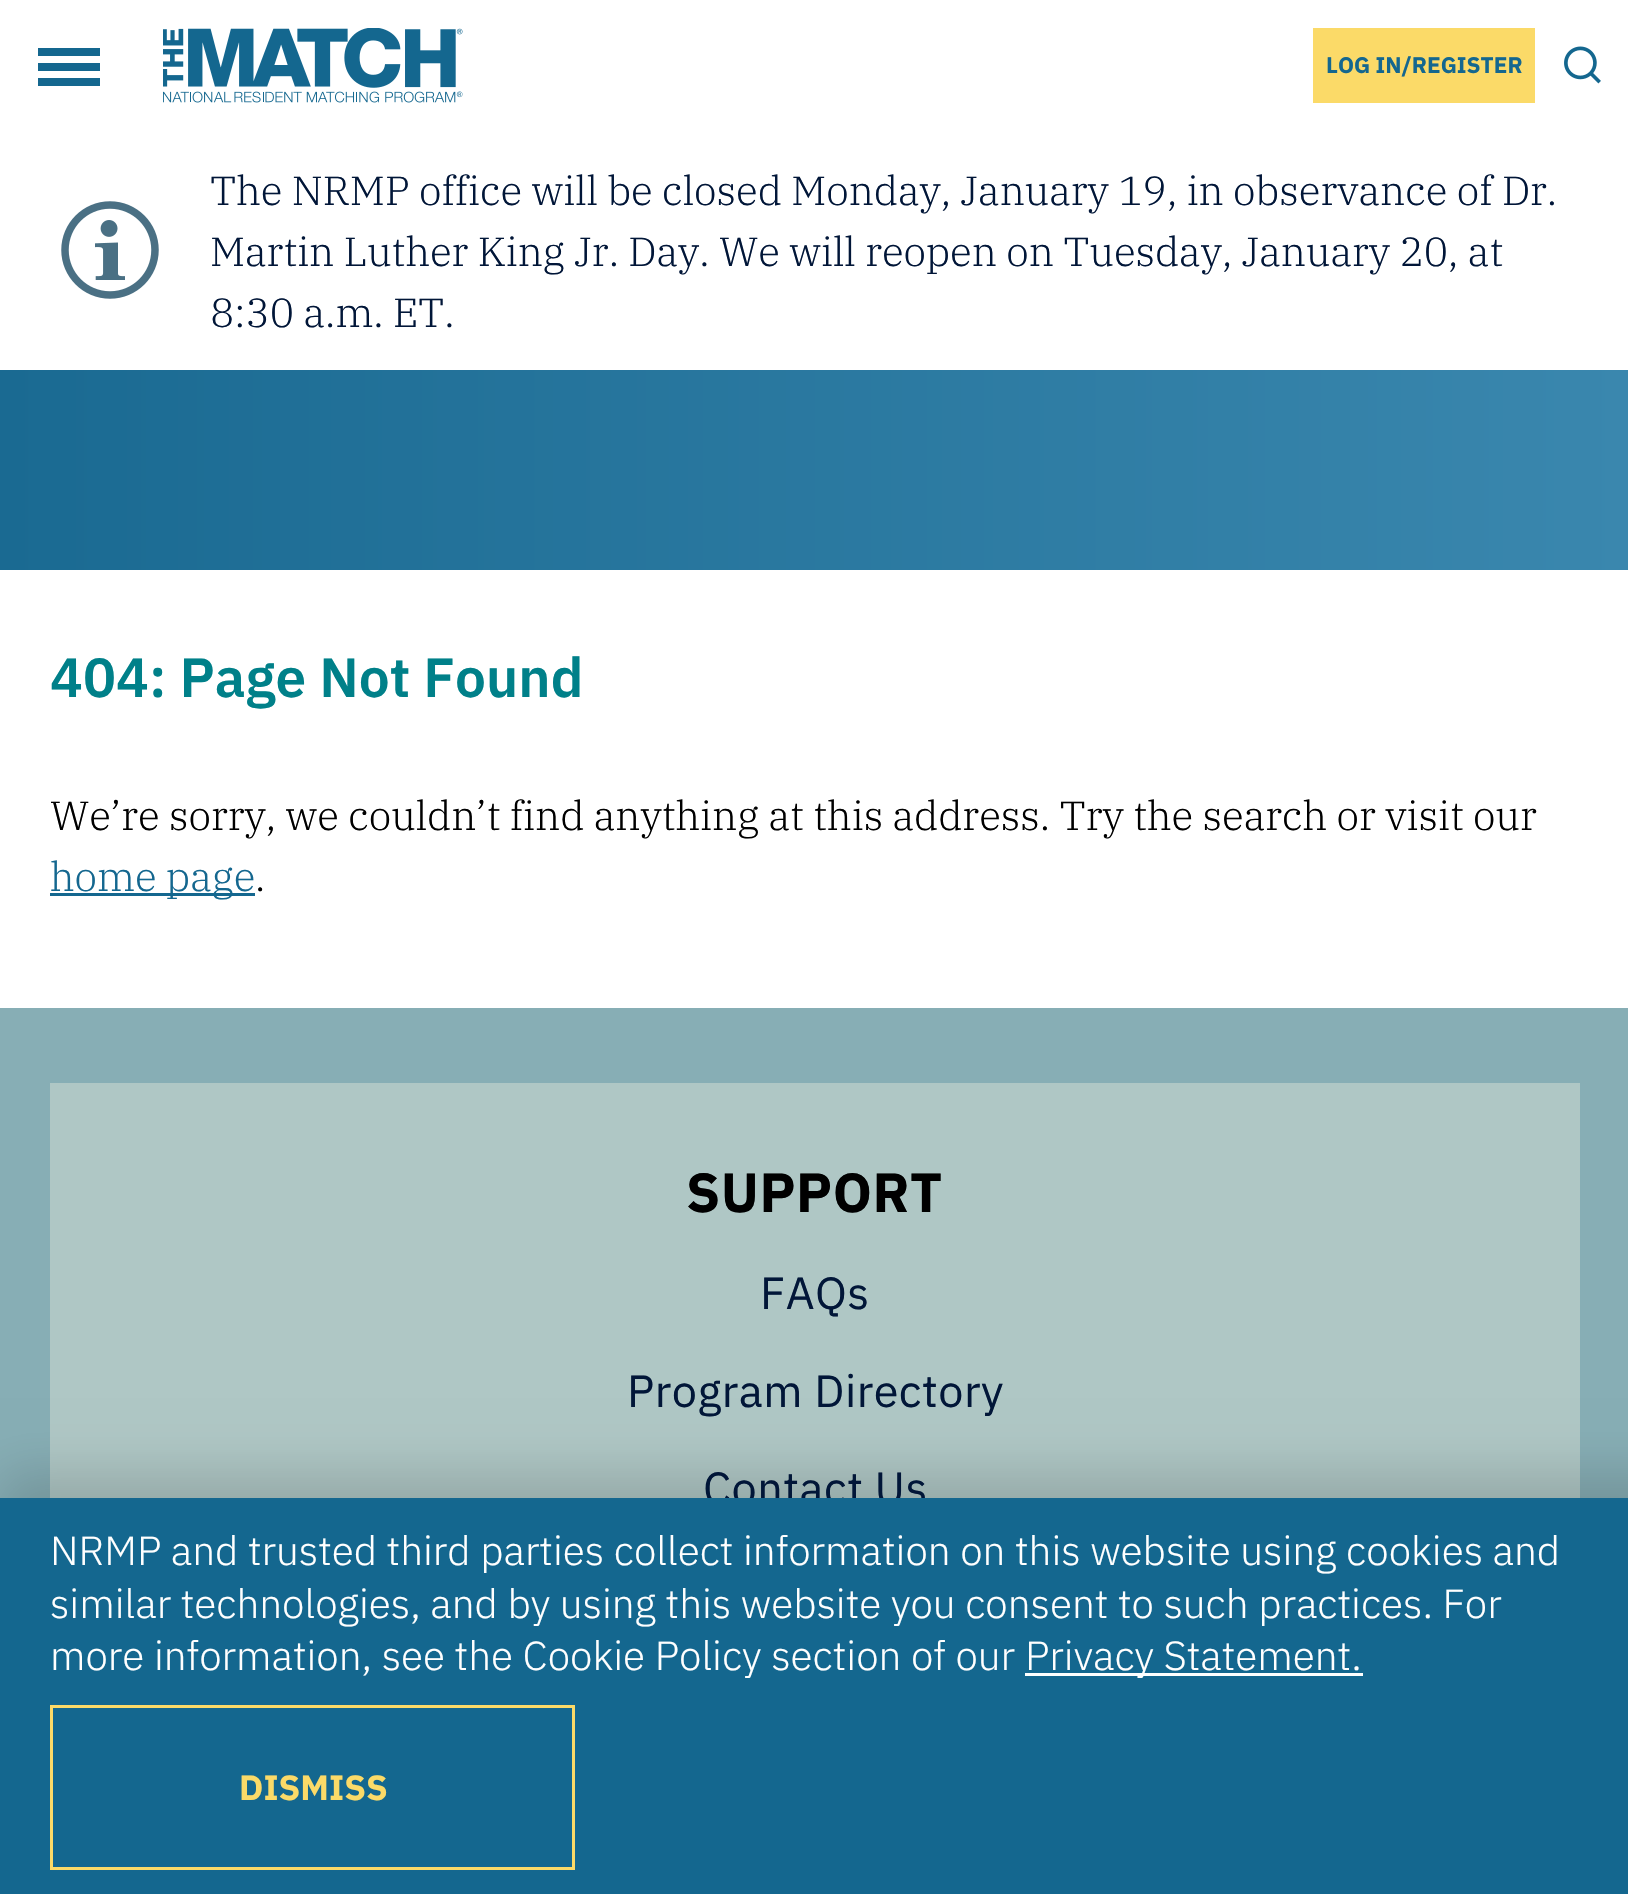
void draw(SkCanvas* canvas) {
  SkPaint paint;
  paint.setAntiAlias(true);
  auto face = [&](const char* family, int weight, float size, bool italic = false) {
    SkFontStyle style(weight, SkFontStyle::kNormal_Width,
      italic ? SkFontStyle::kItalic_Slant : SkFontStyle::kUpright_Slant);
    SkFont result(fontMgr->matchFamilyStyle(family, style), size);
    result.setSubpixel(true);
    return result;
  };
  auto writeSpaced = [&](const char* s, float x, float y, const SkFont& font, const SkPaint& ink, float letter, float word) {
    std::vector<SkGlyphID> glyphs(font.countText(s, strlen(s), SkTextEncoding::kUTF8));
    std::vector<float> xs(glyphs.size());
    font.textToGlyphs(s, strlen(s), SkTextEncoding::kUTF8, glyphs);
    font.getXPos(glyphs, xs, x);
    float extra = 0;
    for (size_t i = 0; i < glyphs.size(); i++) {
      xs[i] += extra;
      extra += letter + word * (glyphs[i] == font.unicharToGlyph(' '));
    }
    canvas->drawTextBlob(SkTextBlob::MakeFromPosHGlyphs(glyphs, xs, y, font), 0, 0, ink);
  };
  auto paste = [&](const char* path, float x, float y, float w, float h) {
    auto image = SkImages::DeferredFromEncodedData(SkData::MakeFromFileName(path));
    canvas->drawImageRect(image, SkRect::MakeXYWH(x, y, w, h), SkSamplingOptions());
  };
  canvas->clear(0xffffffff);
  {
    const struct { float x, y, w, h; SkColor color; } items[] = {
      {38, 63, 62, 8, 0xff14678f},
      {38, 48, 62, 8, 0xff14678f},
      {38, 78, 62, 8, 0xff14678f},
    };
    for (auto [x, y, w, h, color] : items) {
      paint.setColor(color);
      canvas->drawRect(SkRect::MakeXYWH(x, y, w, h), paint);
    }
  }
  paste("img/1.png", 163, 28, 300, 75);
  paint.setColor(0xfffbda68);
  canvas->drawRect(SkRect::MakeXYWH(1313, 28, 222, 75), paint);
  paste("img/2.png", 1564, 46, 37, 38);
  paste("img/3.png", 61, 201, 98, 98);
  {
    const SkColor colors[] = {0xff1a6a92, 0xff3a87ae};
    const float stops[] = {0, 1};
    const SkPoint ends[] = {{0, 470}, {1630, 470}};
    paint.setShader(SkGradientShader::MakeLinear(ends, colors, stops, 2, SkTileMode::kClamp));
    paint.setAlpha(255);
  }
  canvas->drawRect(SkRect::MakeXYWH(0, 370, 1628, 200), paint);
  paint.setShader(nullptr);
  {
    const struct { float x, y, w, h; SkColor color; } items[] = {
      {50, 893, 205, 3, 0xff14678f},
      {0, 1008, 1628, 490, 0xff87aeb5},
      {50, 1083, 1530, 415, 0xffafc7c5},
    };
    for (auto [x, y, w, h, color] : items) {
      paint.setColor(color);
      canvas->drawRect(SkRect::MakeXYWH(x, y, w, h), paint);
    }
  }
  paint.setColor(0x26000000);
  paint.setMaskFilter(SkMaskFilter::MakeBlur(kNormal_SkBlurStyle, 25));
  canvas->drawRect(SkRect::MakeXYWH(0, 1473, 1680, 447), paint);
  paint.setMaskFilter(nullptr);
  auto f0 = face("IBM Plex Sans", 700, 22.5f);
  paint.setColor(0xff14678f);
  canvas->drawString("LOG IN/REGISTER", 1326, 73, f0, paint);
  auto f1 = face("IBM Plex Serif", 300, 40.55f);
  paint.setColor(0xff011638);
  {
    const struct { const char* s; float x, y; } items[] = {
      {"The NRMP office will be closed Monday, January 19, in observance of Dr.", 210, 205},
      {"Martin Luther King Jr. Day. We will reopen on Tuesday, January 20, at", 210, 266},
      {"8:30 a.m. ET.", 210, 327},
    };
    for (auto [s, x, y] : items) {
      canvas->drawString(s, x, y, f1, paint);
    }
  }
  auto f2 = face("IBM Plex Sans", 600, 55);
  paint.setColor(0xff008089);
  canvas->drawString("404: Page Not Found", 50, 697, f2, paint);
  paint.setColor(0xff000000);
  canvas->drawString("We’re sorry, we couldn’t find anything at this address. Try the search or visit our", 50, 830, f1, paint);
  paint.setColor(0xff14678f);
  canvas->drawString("home page", 50, 891, f1, paint);
  paint.setColor(0xff000000);
  canvas->drawString(".", 255, 891, f1, paint);
  auto f3 = face("IBM Plex Sans", 700, 55);
  writeSpaced("SUPPORT", 686, 1212, f3, paint, 0.5f, 0);
  auto f4 = face("IBM Plex Sans", 400, 45);
  paint.setColor(0xff011638);
  {
    const struct { const char* s; float x, y; } items[] = {
      {"FAQs", 760, 1309},
      {"Program Directory", 627, 1407},
      {"Contact Us", 703, 1504},
    };
    for (auto [s, x, y] : items) {
      writeSpaced(s, x, y, f4, paint, 0.5f, 0);
    }
  }
  paint.setColor(0xff14678f);
  canvas->drawRect(SkRect::MakeXYWH(0, 1498, 1628, 396), paint);
  auto f5 = face("IBM Plex Sans", 300, 40.55f);
  paint.setColor(0xffffffff);
  {
    const struct { const char* s; float x, y; } items[] = {
      {"NRMP and trusted third parties collect information on this website using cookies and", 50, 1565},
      {"similar technologies, and by using this website you consent to such practices. For", 50, 1618},
      {"more information, see the Cookie Policy section of our", 50, 1670},
    };
    for (auto [s, x, y] : items) {
      canvas->drawString(s, x, y, f5, paint);
    }
  }
  canvas->drawRect(SkRect::MakeXYWH(1025, 1673, 338, 3), paint);
  canvas->drawString("Privacy Statement.", 1025, 1670, f5, paint);
  paint.setStroke(true);
  paint.setStrokeWidth(3);
  paint.setColor(0xfffbda68);
  canvas->drawRect(SkRect::MakeXYWH(51.5f, 1706.5f, 522, 162), paint);
  auto f6 = face("IBM Plex Sans", 700, 35);
  paint.setStroke(false);
  canvas->drawString("DISMISS", 239, 1800, f6, paint);
}
